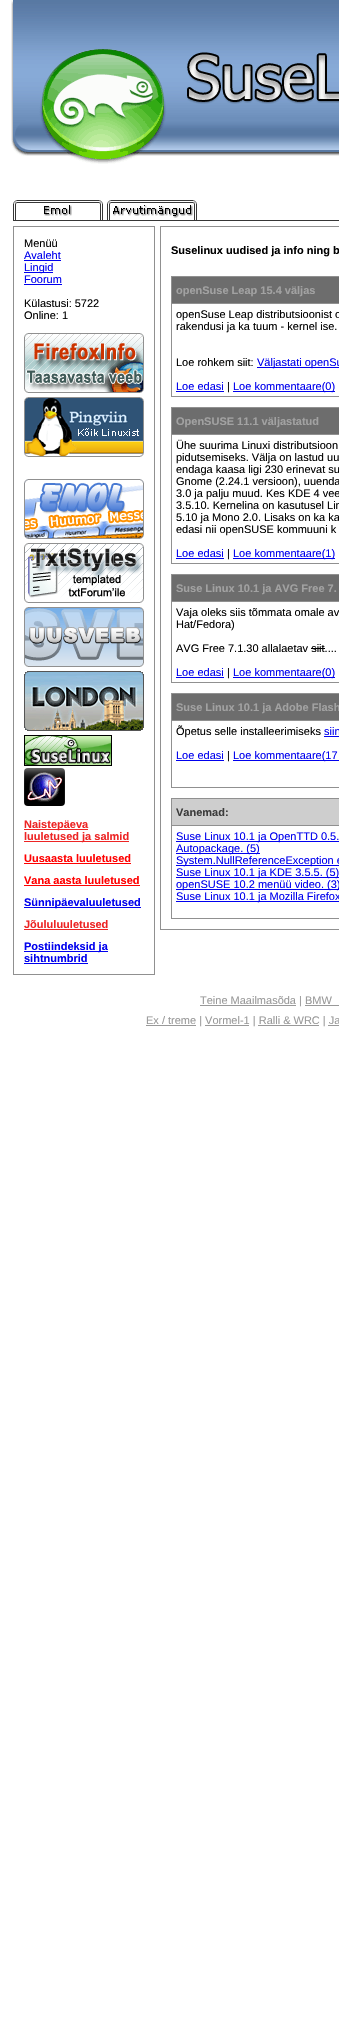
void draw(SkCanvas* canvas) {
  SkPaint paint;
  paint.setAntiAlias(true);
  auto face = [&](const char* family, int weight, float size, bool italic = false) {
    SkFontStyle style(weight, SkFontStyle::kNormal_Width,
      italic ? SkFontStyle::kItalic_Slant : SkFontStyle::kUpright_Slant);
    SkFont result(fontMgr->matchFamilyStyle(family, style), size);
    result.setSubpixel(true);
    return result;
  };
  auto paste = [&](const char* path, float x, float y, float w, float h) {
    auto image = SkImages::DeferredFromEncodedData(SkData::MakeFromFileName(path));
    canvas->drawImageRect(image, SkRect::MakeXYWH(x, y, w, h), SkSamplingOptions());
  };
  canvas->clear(0xffffffff);
  paste("img/1.png", 11, 0, 328, 164);
  paint.setColor(0xff373737);
  canvas->drawRect(SkRect::MakeXYWH(13, 220, 326, 1), paint);
  paste("img/2.png", 13, 200, 90, 20);
  paste("img/3.png", 107, 200, 90, 20);
  paint.setStroke(true);
  paint.setStrokeWidth(1);
  paint.setColor(0xff909090);
  canvas->drawRect(SkRect::MakeXYWH(13.5f, 226.5f, 141, 748), paint);
  paint.setStroke(false);
  {
    const struct { float x, y, w, h; SkColor color; } items[] = {
      {24, 260, 37, 1, 0xff0000ee},
      {24, 272, 29, 1, 0xff0000ee},
      {24, 284, 38, 1, 0xff0000ee},
    };
    for (auto [x, y, w, h, color] : items) {
      paint.setColor(color);
      canvas->drawRect(SkRect::MakeXYWH(x, y, w, h), paint);
    }
  }
  paste("img/4.png", 24, 333, 120, 60);
  paste("img/5.png", 24, 397, 120, 60);
  paste("img/6.png", 24, 479, 120, 60);
  paste("img/7.png", 24, 543, 120, 60);
  paste("img/8.png", 24, 607, 120, 60);
  paste("img/9.png", 24, 671, 120, 60);
  paste("img/10.png", 24, 735, 88, 31);
  paste("img/11.png", 24, 768, 41, 38);
  {
    const struct { float x, y, w, h; SkColor color; } items[] = {
      {24, 829, 64, 1, 0xffed2424},
      {24, 841, 105, 1, 0xffed2424},
      {24, 863, 107, 1, 0xffff0000},
      {24, 885, 116, 1, 0xffff0000},
      {24, 907, 117, 1, 0xff0000ee},
      {24, 929, 84, 1, 0xffed2424},
      {24, 951, 84, 1, 0xff0000ee},
      {24, 963, 64, 1, 0xff0000ee},
    };
    for (auto [x, y, w, h, color] : items) {
      paint.setColor(color);
      canvas->drawRect(SkRect::MakeXYWH(x, y, w, h), paint);
    }
  }
  paint.setStroke(true);
  paint.setColor(0xff909090);
  canvas->drawRect(SkRect::MakeXYWH(160.5f, 226.5f, 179, 703), paint);
  paint.setStroke(false);
  paint.setColor(0xff6d6d6d);
  canvas->drawRect(SkRect::MakeXYWH(171.5f, 276.5f, 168, 27), paint);
  paint.setStroke(true);
  paint.setColor(0xff909090);
  canvas->drawRect(SkRect::MakeXYWH(171.5f, 276.5f, 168, 27), paint);
  paint.setStroke(false);
  {
    const struct { float x, y, w, h; SkColor color; } items[] = {
      {171, 396, 168, 1, 0xff909090},
      {171, 304, 1, 93, 0xff909090},
      {257, 367, 82, 1, 0xff0000ee},
      {176, 391, 48, 1, 0xff0000ee},
      {233, 391, 102, 1, 0xff0000ee},
    };
    for (auto [x, y, w, h, color] : items) {
      paint.setColor(color);
      canvas->drawRect(SkRect::MakeXYWH(x, y, w, h), paint);
    }
  }
  paint.setColor(0xff6d6d6d);
  canvas->drawRect(SkRect::MakeXYWH(171.5f, 407.5f, 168, 27), paint);
  paint.setStroke(true);
  paint.setColor(0xff909090);
  canvas->drawRect(SkRect::MakeXYWH(171.5f, 407.5f, 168, 27), paint);
  paint.setStroke(false);
  {
    const struct { float x, y, w, h; SkColor color; } items[] = {
      {171, 563, 168, 1, 0xff909090},
      {171, 435, 1, 129, 0xff909090},
      {176, 558, 48, 1, 0xff0000ee},
      {233, 558, 102, 1, 0xff0000ee},
    };
    for (auto [x, y, w, h, color] : items) {
      paint.setColor(color);
      canvas->drawRect(SkRect::MakeXYWH(x, y, w, h), paint);
    }
  }
  paint.setColor(0xff6d6d6d);
  canvas->drawRect(SkRect::MakeXYWH(171.5f, 574.5f, 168, 27), paint);
  paint.setStroke(true);
  paint.setColor(0xff909090);
  canvas->drawRect(SkRect::MakeXYWH(171.5f, 574.5f, 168, 27), paint);
  paint.setStroke(false);
  {
    const struct { float x, y, w, h; SkColor color; } items[] = {
      {171, 682, 168, 1, 0xff909090},
      {171, 602, 1, 81, 0xff909090},
      {311, 648, 14, 1, 0xff000000},
      {176, 677, 48, 1, 0xff0000ee},
      {233, 677, 102, 1, 0xff0000ee},
    };
    for (auto [x, y, w, h, color] : items) {
      paint.setColor(color);
      canvas->drawRect(SkRect::MakeXYWH(x, y, w, h), paint);
    }
  }
  paint.setColor(0xff6d6d6d);
  canvas->drawRect(SkRect::MakeXYWH(171.5f, 693.5f, 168, 27), paint);
  paint.setStroke(true);
  paint.setColor(0xff909090);
  canvas->drawRect(SkRect::MakeXYWH(171.5f, 693.5f, 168, 27), paint);
  paint.setStroke(false);
  {
    const struct { float x, y, w, h; SkColor color; } items[] = {
      {171, 787, 168, 1, 0xff909090},
      {171, 721, 1, 67, 0xff909090},
      {324, 736, 15, 1, 0xff0000ee},
      {176, 760, 48, 1, 0xff0000ee},
      {233, 760, 106, 1, 0xff0000ee},
    };
    for (auto [x, y, w, h, color] : items) {
      paint.setColor(color);
      canvas->drawRect(SkRect::MakeXYWH(x, y, w, h), paint);
    }
  }
  paint.setColor(0xffcecece);
  canvas->drawRect(SkRect::MakeXYWH(171.5f, 798.5f, 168, 27), paint);
  paint.setStroke(true);
  paint.setColor(0xff909090);
  canvas->drawRect(SkRect::MakeXYWH(171.5f, 798.5f, 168, 27), paint);
  paint.setStroke(false);
  {
    const struct { float x, y, w, h; SkColor color; } items[] = {
      {171, 918, 168, 1, 0xff909090},
      {171, 826, 1, 93, 0xff909090},
      {176, 841, 163, 1, 0xff0000ee},
      {176, 853, 84, 1, 0xff0000ee},
      {176, 865, 163, 1, 0xff0000ee},
      {176, 877, 163, 1, 0xff0000ee},
      {176, 889, 163, 1, 0xff0000ee},
      {176, 901, 163, 1, 0xff0000ee},
      {200, 1005, 96, 1, 0xff999999},
      {305, 1005, 34, 1, 0xff999999},
      {146, 1025, 50, 1, 0xff999999},
      {205, 1025, 44, 1, 0xff999999},
      {258, 1025, 61, 1, 0xff999999},
      {328, 1025, 11, 1, 0xff999999},
    };
    for (auto [x, y, w, h, color] : items) {
      paint.setColor(color);
      canvas->drawRect(SkRect::MakeXYWH(x, y, w, h), paint);
    }
  }
  auto f0 = face("Liberation Sans", 400, 11);
  paint.setColor(0xff000000);
  canvas->drawString("Menüü", 24, 247, f0, paint);
  paint.setColor(0xff0000ee);
  {
    const struct { const char* s; float x, y; } items[] = {
      {"Avaleht", 24, 259},
      {"Lingid", 24, 271},
      {"Foorum", 24, 283},
    };
    for (auto [s, x, y] : items) {
      canvas->drawString(s, x, y, f0, paint);
    }
  }
  paint.setColor(0xff000000);
  canvas->drawString("Külastusi: 5722", 24, 307, f0, paint);
  canvas->drawString("Online: 1", 24, 319, f0, paint);
  auto f1 = face("Liberation Sans", 700, 11);
  paint.setColor(0xffed2424);
  canvas->drawString("Naistepäeva", 24, 828, f1, paint);
  canvas->drawString("luuletused ja salmid", 24, 840, f1, paint);
  paint.setColor(0xffff0000);
  canvas->drawString("Uusaasta luuletused", 24, 862, f1, paint);
  canvas->drawString("Vana aasta luuletused", 24, 884, f1, paint);
  paint.setColor(0xff0000ee);
  canvas->drawString("Sünnipäevaluuletused", 24, 906, f1, paint);
  paint.setColor(0xffed2424);
  canvas->drawString("Jõululuuletused", 24, 928, f1, paint);
  paint.setColor(0xff0000ee);
  canvas->drawString("Postiindeksid ja", 24, 950, f1, paint);
  canvas->drawString("sihtnumbrid", 24, 962, f1, paint);
  paint.setColor(0xff000000);
  canvas->drawString("Suselinux uudised ja info ning b", 171, 254, f1, paint);
  paint.setColor(0xffa2a2a2);
  canvas->drawString("openSuse Leap 15.4 väljas", 176, 294, f1, paint);
  paint.setColor(0xff000000);
  {
    const struct { const char* s; float x, y; } items[] = {
      {"openSuse Leap distributsioonist o", 176, 318},
      {"rakendusi ja ka tuum - kernel ise.", 176, 330},
      {"Loe rohkem siit:", 176, 366},
    };
    for (auto [s, x, y] : items) {
      canvas->drawString(s, x, y, f0, paint);
    }
  }
  paint.setColor(0xff0000ee);
  canvas->drawString("Väljastati openSu", 257, 366, f0, paint);
  canvas->drawString("Loe edasi", 176, 390, f0, paint);
  paint.setColor(0xff000000);
  canvas->drawString("|", 227, 390, f0, paint);
  paint.setColor(0xff0000ee);
  canvas->drawString("Loe kommentaare(0)", 233, 390, f0, paint);
  paint.setColor(0xffa2a2a2);
  canvas->drawString("OpenSUSE 11.1 väljastatud", 176, 425, f1, paint);
  paint.setColor(0xff000000);
  {
    const struct { const char* s; float x, y; } items[] = {
      {"Ühe suurima Linuxi distributsioon", 176, 449},
      {"pidutsemiseks. Välja on lastud uu", 176, 461},
      {"endaga kaasa ligi 230 erinevat su", 176, 473},
      {"Gnome (2.24.1 versioon), uuenda", 176, 485},
      {"3.0 ja palju muud. Kes KDE 4 vee", 176, 497},
      {"3.5.10. Kernelina on kasutusel Lin", 176, 509},
      {"5.10 ja Mono 2.0. Lisaks on ka ka", 176, 521},
      {"edasi nii openSUSE kommuuni k", 176, 533},
    };
    for (auto [s, x, y] : items) {
      canvas->drawString(s, x, y, f0, paint);
    }
  }
  paint.setColor(0xff0000ee);
  canvas->drawString("Loe edasi", 176, 557, f0, paint);
  paint.setColor(0xff000000);
  canvas->drawString("|", 227, 557, f0, paint);
  paint.setColor(0xff0000ee);
  canvas->drawString("Loe kommentaare(1)", 233, 557, f0, paint);
  paint.setColor(0xffa2a2a2);
  canvas->drawString("Suse Linux 10.1 ja AVG Free 7.", 176, 592, f1, paint);
  paint.setColor(0xff000000);
  {
    const struct { const char* s; float x, y; } items[] = {
      {"Vaja oleks siis tõmmata omale av", 176, 616},
      {"Hat/Fedora)", 176, 628},
      {"AVG Free 7.1.30 allalaetav siit....", 176, 652},
    };
    for (auto [s, x, y] : items) {
      canvas->drawString(s, x, y, f0, paint);
    }
  }
  paint.setColor(0xff0000ee);
  canvas->drawString("Loe edasi", 176, 676, f0, paint);
  paint.setColor(0xff000000);
  canvas->drawString("|", 227, 676, f0, paint);
  paint.setColor(0xff0000ee);
  canvas->drawString("Loe kommentaare(0)", 233, 676, f0, paint);
  paint.setColor(0xffa2a2a2);
  canvas->drawString("Suse Linux 10.1 ja Adobe Flash", 176, 711, f1, paint);
  paint.setColor(0xff000000);
  canvas->drawString("Õpetus selle installeerimiseks", 176, 735, f0, paint);
  paint.setColor(0xff0000ee);
  canvas->drawString("siin", 324, 735, f0, paint);
  canvas->drawString("Loe edasi", 176, 759, f0, paint);
  paint.setColor(0xff000000);
  canvas->drawString("|", 227, 759, f0, paint);
  paint.setColor(0xff0000ee);
  canvas->drawString("Loe kommentaare(17", 233, 759, f0, paint);
  paint.setColor(0xff3c3c3c);
  canvas->drawString("Vanemad:", 176, 816, f1, paint);
  paint.setColor(0xff0000ee);
  {
    const struct { const char* s; float x, y; } items[] = {
      {"Suse Linux 10.1 ja OpenTTD 0.5.", 176, 840},
      {"Autopackage. (5)", 176, 852},
      {"System.NullReferenceException e", 176, 864},
      {"Suse Linux 10.1 ja KDE 3.5.5. (5)", 176, 876},
      {"openSUSE 10.2 menüü video. (3)", 176, 888},
      {"Suse Linux 10.1 ja Mozilla Firefox", 176, 900},
    };
    for (auto [s, x, y] : items) {
      canvas->drawString(s, x, y, f0, paint);
    }
  }
  paint.setColor(0xff999999);
  canvas->drawString("Teine Maailmasõda | BMW", 200, 1004, f0, paint);
  canvas->drawString("Ex / treme | Vormel-1 | Ralli & WRC | Ja", 146, 1024, f0, paint);
}
